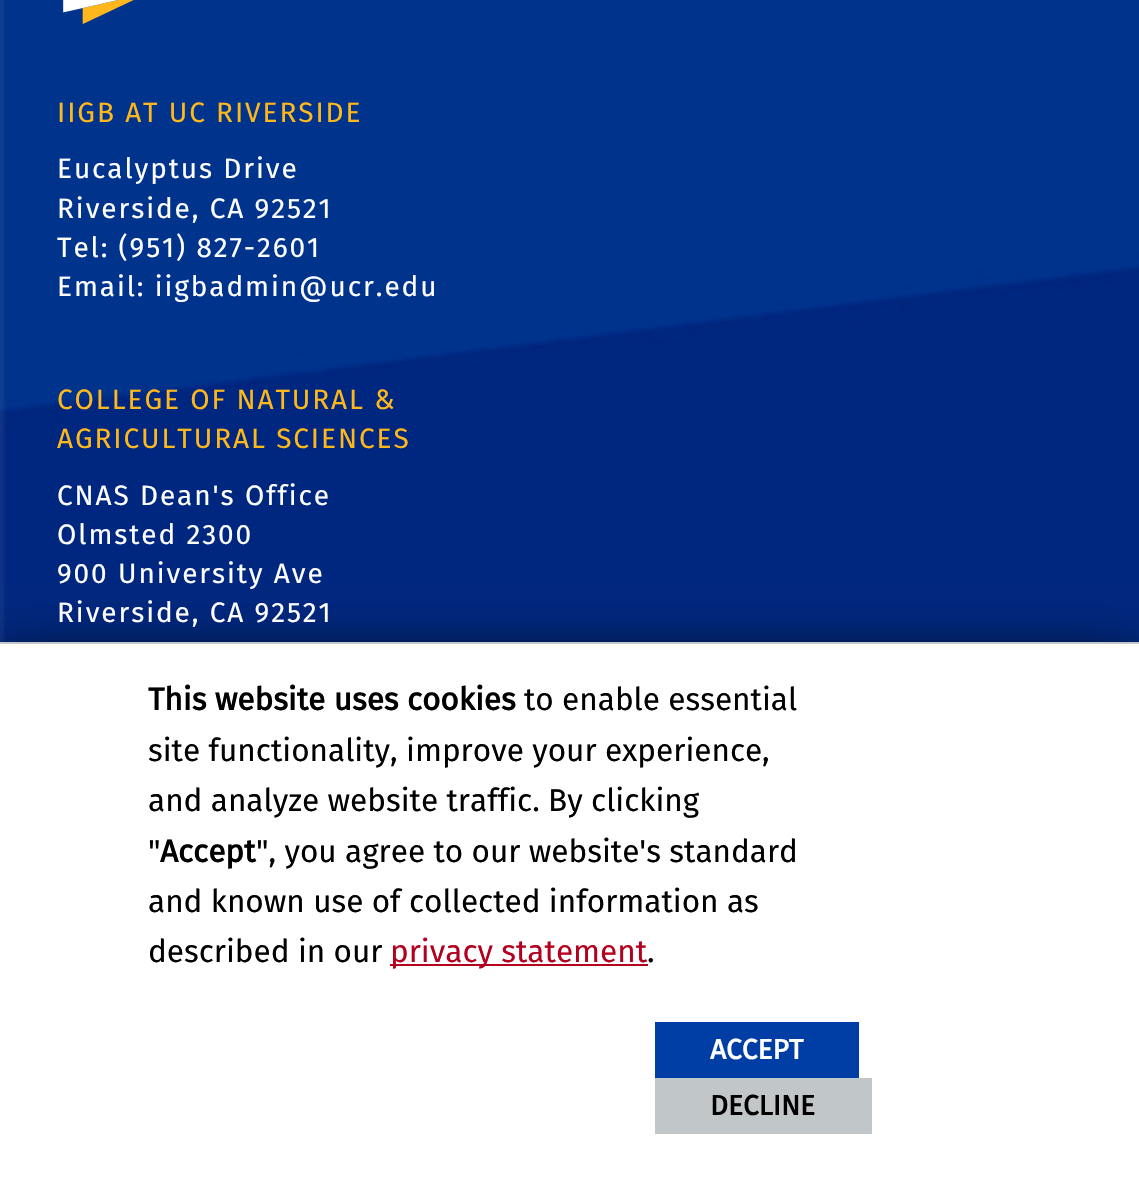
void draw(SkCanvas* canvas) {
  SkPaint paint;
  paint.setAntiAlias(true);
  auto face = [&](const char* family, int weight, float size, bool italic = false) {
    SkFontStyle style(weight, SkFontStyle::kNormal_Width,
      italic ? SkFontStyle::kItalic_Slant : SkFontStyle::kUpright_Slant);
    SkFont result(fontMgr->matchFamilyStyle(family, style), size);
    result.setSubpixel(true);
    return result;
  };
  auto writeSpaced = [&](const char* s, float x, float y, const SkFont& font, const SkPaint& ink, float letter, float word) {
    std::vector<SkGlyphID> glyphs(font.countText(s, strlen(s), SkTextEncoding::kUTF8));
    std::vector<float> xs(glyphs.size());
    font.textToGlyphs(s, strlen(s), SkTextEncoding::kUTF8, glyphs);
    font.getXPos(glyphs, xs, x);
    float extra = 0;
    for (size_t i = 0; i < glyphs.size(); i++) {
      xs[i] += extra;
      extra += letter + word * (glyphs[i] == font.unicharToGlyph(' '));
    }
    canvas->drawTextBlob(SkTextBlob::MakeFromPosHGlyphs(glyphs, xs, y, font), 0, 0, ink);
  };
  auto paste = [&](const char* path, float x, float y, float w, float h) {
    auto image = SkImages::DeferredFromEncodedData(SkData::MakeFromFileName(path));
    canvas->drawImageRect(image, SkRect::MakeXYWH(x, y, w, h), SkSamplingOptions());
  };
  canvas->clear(0xffffffff);
  paste("img/1.png", 0, 0, 1139, 642);
  paste("img/2.png", 63, 0, 71, 24);
  paint.setColor(0xff020203);
  paint.setMaskFilter(SkMaskFilter::MakeBlur(kNormal_SkBlurStyle, 26));
  canvas->drawRect(SkRect::MakeXYWH(0, 660, 1139, 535), paint);
  paint.setMaskFilter(nullptr);
  {
    const struct { float x, y, w, h; SkColor color; } items[] = {
      {0, 644, 1139, 533, 0xffffffff},
      {0, 642, 1139, 2, 0xffc1c6c8},
      {390, 964, 258, 2, 0xffb4001f},
      {655, 1022, 204, 56, 0xff003da5},
      {655, 1078, 217, 56, 0xffc1c6c8},
    };
    for (auto [x, y, w, h, color] : items) {
      paint.setColor(color);
      canvas->drawRect(SkRect::MakeXYWH(x, y, w, h), paint);
    }
  }
  auto f0 = face("Fira Sans", 400, 28);
  paint.setColor(0xffffb81c);
  writeSpaced("IIGB AT UC RIVERSIDE", 57, 122, f0, paint, 1.9f, 0);
  paint.setColor(0xffffffff);
  {
    const struct { const char* s; float x, y; } items[] = {
      {"Eucalyptus Drive", 57, 178},
      {"Riverside, CA 92521", 57, 218},
      {"Tel: (951) 827-2601", 57, 257},
      {"Email: iigbadmin@ucr.edu", 57, 296},
    };
    for (auto [s, x, y] : items) {
      writeSpaced(s, x, y, f0, paint, 1.9f, 0);
    }
  }
  paint.setColor(0xffffb81c);
  writeSpaced("COLLEGE OF NATURAL &", 57, 409, f0, paint, 1.9f, 0);
  writeSpaced("AGRICULTURAL SCIENCES", 57, 448, f0, paint, 1.9f, 0);
  paint.setColor(0xffffffff);
  {
    const struct { const char* s; float x, y; } items[] = {
      {"CNAS Dean's Office", 57, 505},
      {"Olmsted 2300", 57, 544},
      {"900 University Ave", 57, 583},
      {"Riverside, CA 92521", 57, 622},
    };
    for (auto [s, x, y] : items) {
      writeSpaced(s, x, y, f0, paint, 1.9f, 0);
    }
  }
  auto f1 = face("Fira Sans", 700, 31.5f);
  paint.setColor(0xff000000);
  canvas->drawString("This website uses cookies", 148, 710, f1, paint);
  auto f2 = face("Fira Sans", 400, 31.5f);
  {
    const struct { const char* s; float x, y; } items[] = {
      {"to enable essential", 524, 710},
      {"site functionality, improve your experience,", 148, 761},
      {"and analyze website traffic. By clicking", 148, 811},
      {"\"", 148, 862},
    };
    for (auto [s, x, y] : items) {
      canvas->drawString(s, x, y, f2, paint);
    }
  }
  canvas->drawString("Accept", 160, 862, f1, paint);
  {
    const struct { const char* s; float x, y; } items[] = {
      {"\", you agree to our website's standard", 256, 862},
      {"and known use of collected information as", 148, 912},
      {"described in our", 148, 962},
    };
    for (auto [s, x, y] : items) {
      canvas->drawString(s, x, y, f2, paint);
    }
  }
  paint.setColor(0xffb4001f);
  canvas->drawString("privacy statement", 390, 962, f2, paint);
  paint.setColor(0xff000000);
  canvas->drawString(".", 647, 962, f2, paint);
  auto f3 = face("Fira Sans", 700, 28);
  paint.setColor(0xffffffff);
  canvas->drawString("ACCEPT", 710, 1059, f3, paint);
  paint.setColor(0xff000000);
  canvas->drawString("DECLINE", 710, 1115, f3, paint);
}
